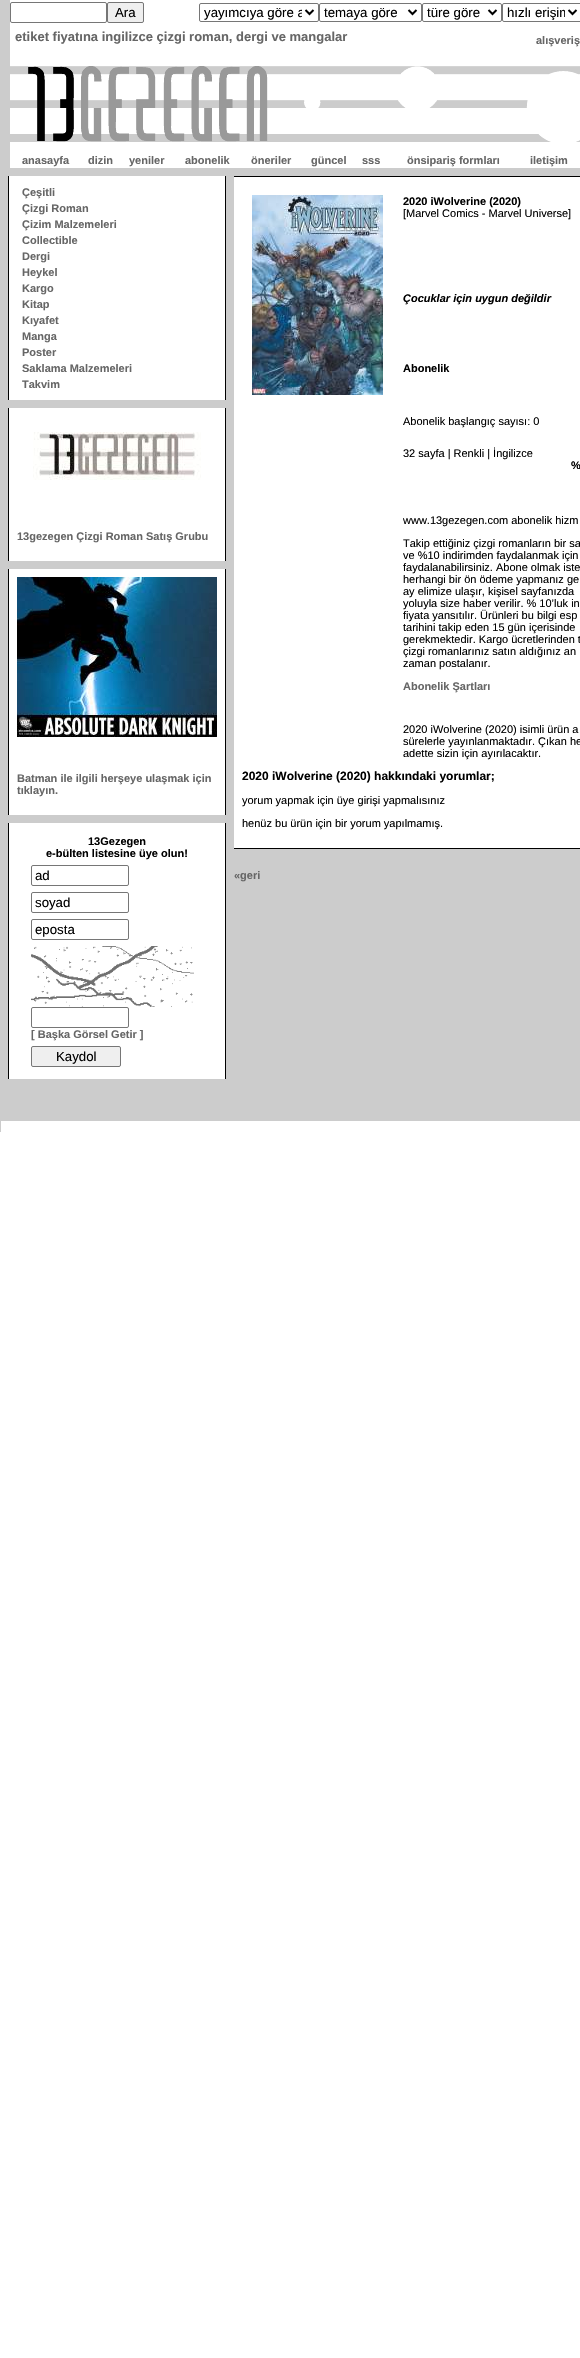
void draw(SkCanvas* canvas) {
  SkPaint paint;
  paint.setAntiAlias(true);
  auto face = [&](const char* family, int weight, float size, bool italic = false) {
    SkFontStyle style(weight, SkFontStyle::kNormal_Width,
      italic ? SkFontStyle::kItalic_Slant : SkFontStyle::kUpright_Slant);
    SkFont result(fontMgr->matchFamilyStyle(family, style), size);
    result.setSubpixel(true);
    return result;
  };
  auto paste = [&](const char* path, float x, float y, float w, float h) {
    auto image = SkImages::DeferredFromEncodedData(SkData::MakeFromFileName(path));
    canvas->drawImageRect(image, SkRect::MakeXYWH(x, y, w, h), SkSamplingOptions());
  };
  auto shape = [&](const char* data, bool evenOdd = false) {
    SkPath result = *SkParsePath::FromSVGString(data);
    if (evenOdd) result.setFillType(SkPathFillType::kEvenOdd);
    return result;
  };
  canvas->clear(0xffffffff);
  paint.setColor(0xffcccccc);
  canvas->drawRect(SkRect::MakeXYWH(0, 0, 580, 1132), paint);
  paint.setColor(0xffffffff);
  canvas->drawRect(SkRect::MakeXYWH(10, 0, 570, 168), paint);
  paint.setStroke(true);
  paint.setStrokeWidth(1);
  paint.setColor(0xff767676);
  canvas->drawRoundRect(SkRect::MakeXYWH(10.5f, 2.5f, 96, 20), 1.5f, 1.5f, paint);
  paint.setStroke(false);
  paint.setColor(0xffefefef);
  canvas->drawRoundRect(SkRect::MakeXYWH(107.5f, 2.5f, 36, 20), 1.5f, 1.5f, paint);
  paint.setStroke(true);
  paint.setColor(0xff767676);
  canvas->drawRoundRect(SkRect::MakeXYWH(107.5f, 2.5f, 36, 20), 1.5f, 1.5f, paint);
  canvas->drawRoundRect(SkRect::MakeXYWH(199.5f, 3.5f, 119, 18), 1.5f, 1.5f, paint);
  paint.setStrokeWidth(2);
  paint.setColor(0xff000000);
  canvas->drawPath(shape("M305.5 10L309.5 14L313.5 10"), paint);
  paint.setStrokeWidth(1);
  paint.setColor(0xff767676);
  canvas->drawRoundRect(SkRect::MakeXYWH(319.5f, 3.5f, 102, 18), 1.5f, 1.5f, paint);
  paint.setStrokeWidth(2);
  paint.setColor(0xff000000);
  canvas->drawPath(shape("M408.5 10L412.5 14L416.5 10"), paint);
  paint.setStrokeWidth(1);
  paint.setColor(0xff767676);
  canvas->drawRoundRect(SkRect::MakeXYWH(422.5f, 3.5f, 79, 18), 1.5f, 1.5f, paint);
  paint.setStrokeWidth(2);
  paint.setColor(0xff000000);
  canvas->drawPath(shape("M488.5 10L492.5 14L496.5 10"), paint);
  paint.setStrokeWidth(1);
  paint.setColor(0xff767676);
  canvas->drawRoundRect(SkRect::MakeXYWH(502.5f, 3.5f, 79, 18), 1.5f, 1.5f, paint);
  paint.setStrokeWidth(2);
  paint.setColor(0xff000000);
  canvas->drawPath(shape("M568.5 10L572.5 14L576.5 10"), paint);
  paste("img/1.png", 10, 66, 570, 76);
  paint.setStroke(false);
  {
    const struct { float x, y, w, h; SkColor color; } items[] = {
      {9, 176, 216, 224, 0xffffffff},
      {225, 176, 1, 224, 0xff000000},
      {8, 176, 1, 224, 0xff000000},
      {9, 408, 216, 153, 0xffffffff},
      {225, 408, 1, 153, 0xff000000},
      {8, 408, 1, 153, 0xff000000},
    };
    for (auto [x, y, w, h, color] : items) {
      paint.setColor(color);
      canvas->drawRect(SkRect::MakeXYWH(x, y, w, h), paint);
    }
  }
  paste("img/2.png", 33, 432, 168, 48);
  {
    const struct { float x, y, w, h; SkColor color; } items[] = {
      {9, 569, 216, 246, 0xffffffff},
      {225, 569, 1, 246, 0xff000000},
      {8, 569, 1, 246, 0xff000000},
    };
    for (auto [x, y, w, h, color] : items) {
      paint.setColor(color);
      canvas->drawRect(SkRect::MakeXYWH(x, y, w, h), paint);
    }
  }
  paste("img/3.png", 17, 577, 200, 160);
  {
    const struct { float x, y, w, h; SkColor color; } items[] = {
      {9, 823, 216, 256, 0xffffffff},
      {225, 823, 1, 256, 0xff000000},
      {8, 823, 1, 256, 0xff000000},
    };
    for (auto [x, y, w, h, color] : items) {
      paint.setColor(color);
      canvas->drawRect(SkRect::MakeXYWH(x, y, w, h), paint);
    }
  }
  paint.setStroke(true);
  paint.setStrokeWidth(1);
  paint.setColor(0xff767676);
  canvas->drawRoundRect(SkRect::MakeXYWH(31.5f, 865.5f, 97, 20), 1.5f, 1.5f, paint);
  canvas->drawRoundRect(SkRect::MakeXYWH(31.5f, 892.5f, 97, 20), 1.5f, 1.5f, paint);
  canvas->drawRoundRect(SkRect::MakeXYWH(31.5f, 919.5f, 97, 20), 1.5f, 1.5f, paint);
  paste("img/4.png", 31, 946, 163, 61);
  canvas->drawRoundRect(SkRect::MakeXYWH(31.5f, 1007.5f, 97, 20), 1.5f, 1.5f, paint);
  paint.setStroke(false);
  paint.setColor(0xffefefef);
  canvas->drawRoundRect(SkRect::MakeXYWH(31.5f, 1046.5f, 89, 20), 1.5f, 1.5f, paint);
  paint.setStroke(true);
  paint.setColor(0xff767676);
  canvas->drawRoundRect(SkRect::MakeXYWH(31.5f, 1046.5f, 89, 20), 1.5f, 1.5f, paint);
  paint.setStroke(false);
  {
    const struct { float x, y, w, h; SkColor color; } items[] = {
      {234, 177, 346, 671, 0xffffffff},
      {234, 176, 346, 1, 0xff000000},
      {234, 848, 346, 1, 0xff000000},
    };
    for (auto [x, y, w, h, color] : items) {
      paint.setColor(color);
      canvas->drawRect(SkRect::MakeXYWH(x, y, w, h), paint);
    }
  }
  paste("img/5.png", 252, 195, 131, 200);
  paint.setColor(0xffffffff);
  canvas->drawRect(SkRect::MakeXYWH(1, 1121, 579, 11), paint);
  auto f0 = face("Liberation Sans", 400, 13.25f);
  paint.setColor(0xff000000);
  canvas->drawString("Ara", 115, 17, f0, paint);
  canvas->save();
  canvas->clipRect(SkRect::MakeXYWH(204, 4, 98, 17));
  canvas->drawString("yayımcıya göre a", 204, 17, f0, paint);
  canvas->restore();
  canvas->drawString("temaya göre", 324, 17, f0, paint);
  canvas->drawString("türe göre", 427, 17, f0, paint);
  canvas->save();
  canvas->clipRect(SkRect::MakeXYWH(507, 4, 58, 17));
  canvas->drawString("hızlı erişim", 507, 17, f0, paint);
  canvas->restore();
  auto f1 = face("Liberation Sans", 700, 13);
  paint.setColor(0xff666666);
  canvas->drawString("etiket fiyatına ingilizce çizgi roman, dergi ve mangalar", 15, 41, f1, paint);
  auto f2 = face("Liberation Sans", 700, 11);
  {
    const struct { const char* s; float x, y; } items[] = {
      {"alışveriş", 536, 44},
      {"anasayfa", 22, 164},
      {"dizin", 88, 164},
      {"yeniler", 129, 164},
      {"abonelik", 185, 164},
      {"öneriler", 251, 164},
      {"güncel", 311, 164},
      {"sss", 362, 164},
      {"önsipariş formları", 407, 164},
      {"iletişim", 530, 164},
      {"Çeşitli", 22, 196},
      {"Çizgi Roman", 22, 212},
      {"Çizim Malzemeleri", 22, 228},
      {"Collectible", 22, 244},
      {"Dergi", 22, 260},
      {"Heykel", 22, 276},
      {"Kargo", 22, 292},
      {"Kitap", 22, 308},
      {"Kıyafet", 22, 324},
      {"Manga", 22, 340},
      {"Poster", 22, 356},
      {"Saklama Malzemeleri", 22, 372},
      {"Takvim", 22, 388},
      {"13gezegen Çizgi Roman Satış Grubu", 17, 540},
      {"Batman ile ilgili herşeye ulaşmak için", 17, 782},
      {"tıklayın.", 17, 794},
    };
    for (auto [s, x, y] : items) {
      canvas->drawString(s, x, y, f2, paint);
    }
  }
  paint.setColor(0xff000000);
  canvas->drawString("13Gezegen", 88, 845, f2, paint);
  canvas->drawString("e-bülten listesine üye olun!", 46, 857, f2, paint);
  {
    const struct { const char* s; float x, y; } items[] = {
      {"ad", 35, 880},
      {"soyad", 35, 907},
      {"eposta", 35, 934},
    };
    for (auto [s, x, y] : items) {
      canvas->drawString(s, x, y, f0, paint);
    }
  }
  paint.setColor(0xff666666);
  canvas->drawString("[ Başka Görsel Getir ]", 31, 1038, f2, paint);
  paint.setColor(0xff000000);
  canvas->drawString("Kaydol", 56, 1061, f0, paint);
  canvas->drawString("2020 iWolverine (2020)", 403, 205, f2, paint);
  auto f3 = face("Liberation Sans", 400, 11);
  canvas->drawString("[Marvel Comics - Marvel Universe]", 403, 217, f3, paint);
  auto f4 = face("Liberation Sans", 700, 11, true);
  canvas->drawString("Çocuklar için uygun değildir", 403, 302, f4, paint);
  canvas->drawString("Abonelik", 403, 372, f2, paint);
  canvas->drawString("Abonelik başlangıç sayısı: 0", 403, 425, f3, paint);
  canvas->drawString("32 sayfa | Renkli | İngilizce", 403, 457, f3, paint);
  canvas->drawString("%", 571, 469, f2, paint);
  {
    const struct { const char* s; float x, y; } items[] = {
      {"www.13gezegen.com abonelik hizm", 403, 524},
      {"Takip ettiğiniz çizgi romanların bir sa", 403, 547},
      {"ve %10 indirimden faydalanmak için", 403, 559},
      {"faydalanabilirsiniz. Abone olmak iste", 403, 571},
      {"herhangi bir ön ödeme yapmanız ge", 403, 583},
      {"ay elimize ulaşır, kişisel sayfanızda", 403, 595},
      {"yoluyla size haber verilir. % 10’luk in", 403, 607},
      {"fiyata yansıtılır. Ürünleri bu bilgi esp", 403, 619},
      {"tarihini takip eden 15 gün içerisinde", 403, 631},
      {"gerekmektedir. Kargo ücretlerinden t", 403, 643},
      {"çizgi romanlarınız satın aldığınız an", 403, 655},
      {"zaman postalanır.", 403, 667},
    };
    for (auto [s, x, y] : items) {
      canvas->drawString(s, x, y, f3, paint);
    }
  }
  paint.setColor(0xff666666);
  canvas->drawString("Abonelik Şartları", 403, 690, f2, paint);
  paint.setColor(0xff000000);
  {
    const struct { const char* s; float x, y; } items[] = {
      {"2020 iWolverine (2020) isimli ürün a", 403, 733},
      {"sürelerle yayınlanmaktadır. Çıkan he", 403, 745},
      {"adette sizin için ayırılacaktır.", 403, 757},
    };
    for (auto [s, x, y] : items) {
      canvas->drawString(s, x, y, f3, paint);
    }
  }
  auto f5 = face("Liberation Sans", 700, 12);
  canvas->drawString("2020 iWolverine (2020) hakkındaki yorumlar;", 242, 780, f5, paint);
  canvas->drawString("yorum yapmak için üye girişi yapmalısınız", 242, 804, f3, paint);
  canvas->drawString("henüz bu ürün için bir yorum yapılmamış.", 242, 827, f3, paint);
  paint.setColor(0xff666666);
  canvas->drawString("«geri", 234, 879, f2, paint);
}
